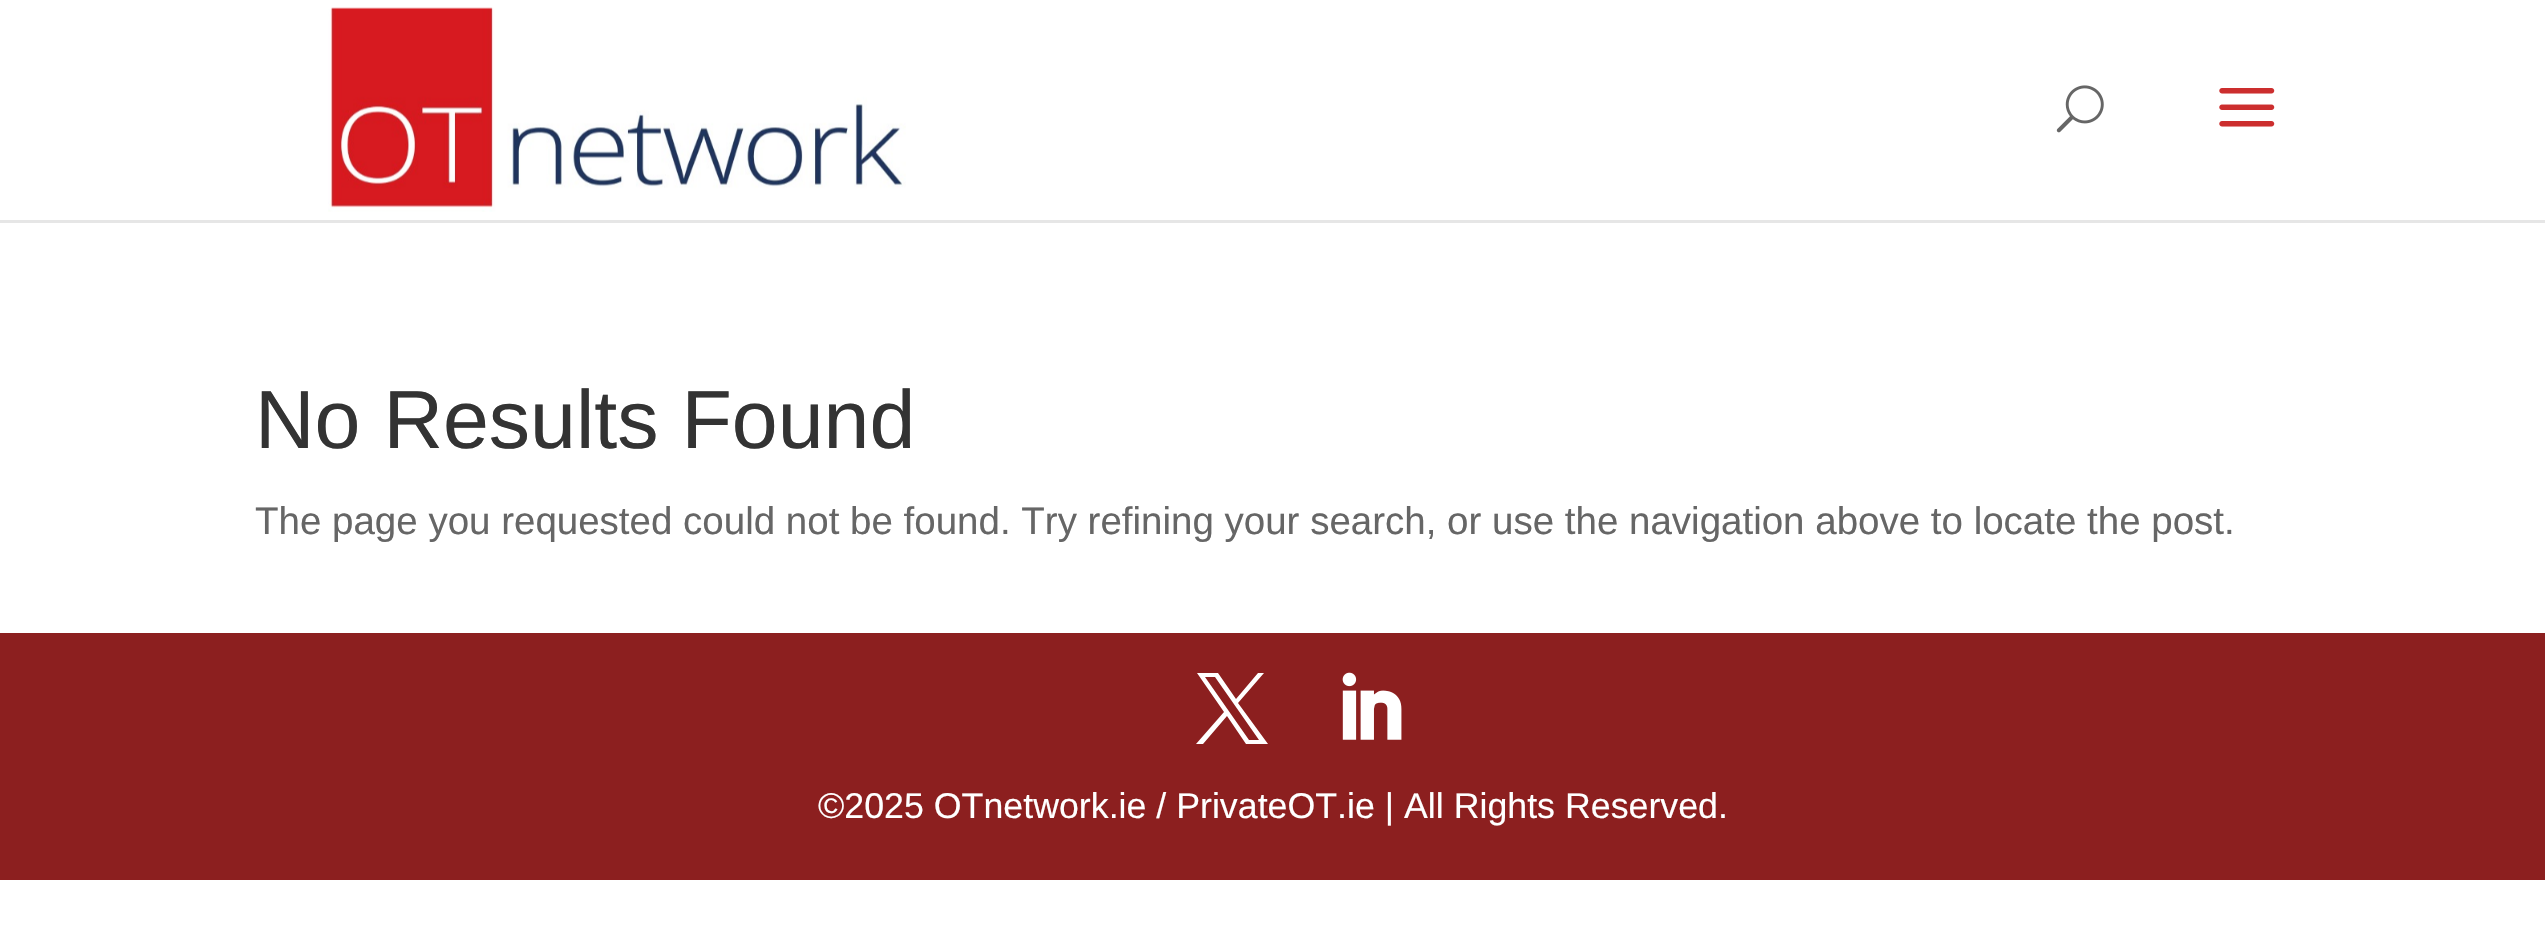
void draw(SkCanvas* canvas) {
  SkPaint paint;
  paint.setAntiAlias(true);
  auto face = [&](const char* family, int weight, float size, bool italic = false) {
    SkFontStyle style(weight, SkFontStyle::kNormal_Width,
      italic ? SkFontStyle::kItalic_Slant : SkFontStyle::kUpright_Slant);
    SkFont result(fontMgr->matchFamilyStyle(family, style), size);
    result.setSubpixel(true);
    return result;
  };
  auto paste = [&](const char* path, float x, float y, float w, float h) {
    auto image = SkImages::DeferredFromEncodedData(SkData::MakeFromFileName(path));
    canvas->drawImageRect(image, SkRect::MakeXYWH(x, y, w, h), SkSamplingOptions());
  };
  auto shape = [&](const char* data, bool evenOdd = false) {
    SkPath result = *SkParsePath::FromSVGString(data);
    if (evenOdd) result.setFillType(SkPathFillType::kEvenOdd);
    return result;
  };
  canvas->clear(0xffffffff);
  paint.setColor(0xffe6e6e6);
  canvas->drawPath(shape("M0 220V223H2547V3H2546V220Z"), paint);
  paste("img/1.png", 328, 7, 578, 205);
  paste("img/2.png", 2056, 85, 48, 48);
  paste("img/3.png", 2219, 88, 56, 39);
  paint.setColor(0xff8c1f1f);
  canvas->drawRect(SkRect::MakeXYWH(0, 633, 2545, 247), paint);
  paint.setColor(0xffffffff);
  canvas->drawPath(shape("M1197 673L1224 712L1196 744H1203L1227 716L1246 744H1268L1238 703L1264 673H1258L1236 699L1218 673ZM1205 677H1215L1259 740H1249Z"), paint);
  paste("img/4.png", 1342, 672, 60, 68);
  auto f0 = face("Liberation Sans", 400, 82.5f);
  paint.setColor(0xff333333);
  canvas->drawString("No Results Found", 255, 448, f0, paint);
  auto f1 = face("Liberation Sans", 400, 38.5f);
  paint.setColor(0xff666666);
  canvas->drawString("The page you requested could not be found. Try refining your search, or use the navigation above to locate the post.", 255, 534, f1, paint);
  auto f2 = face("Liberation Sans", 400, 35.75f);
  paint.setColor(0xffffffff);
  canvas->drawString("©2025 OTnetwork.ie / PrivateOT.ie | All Rights Reserved.", 818, 818, f2, paint);
}
